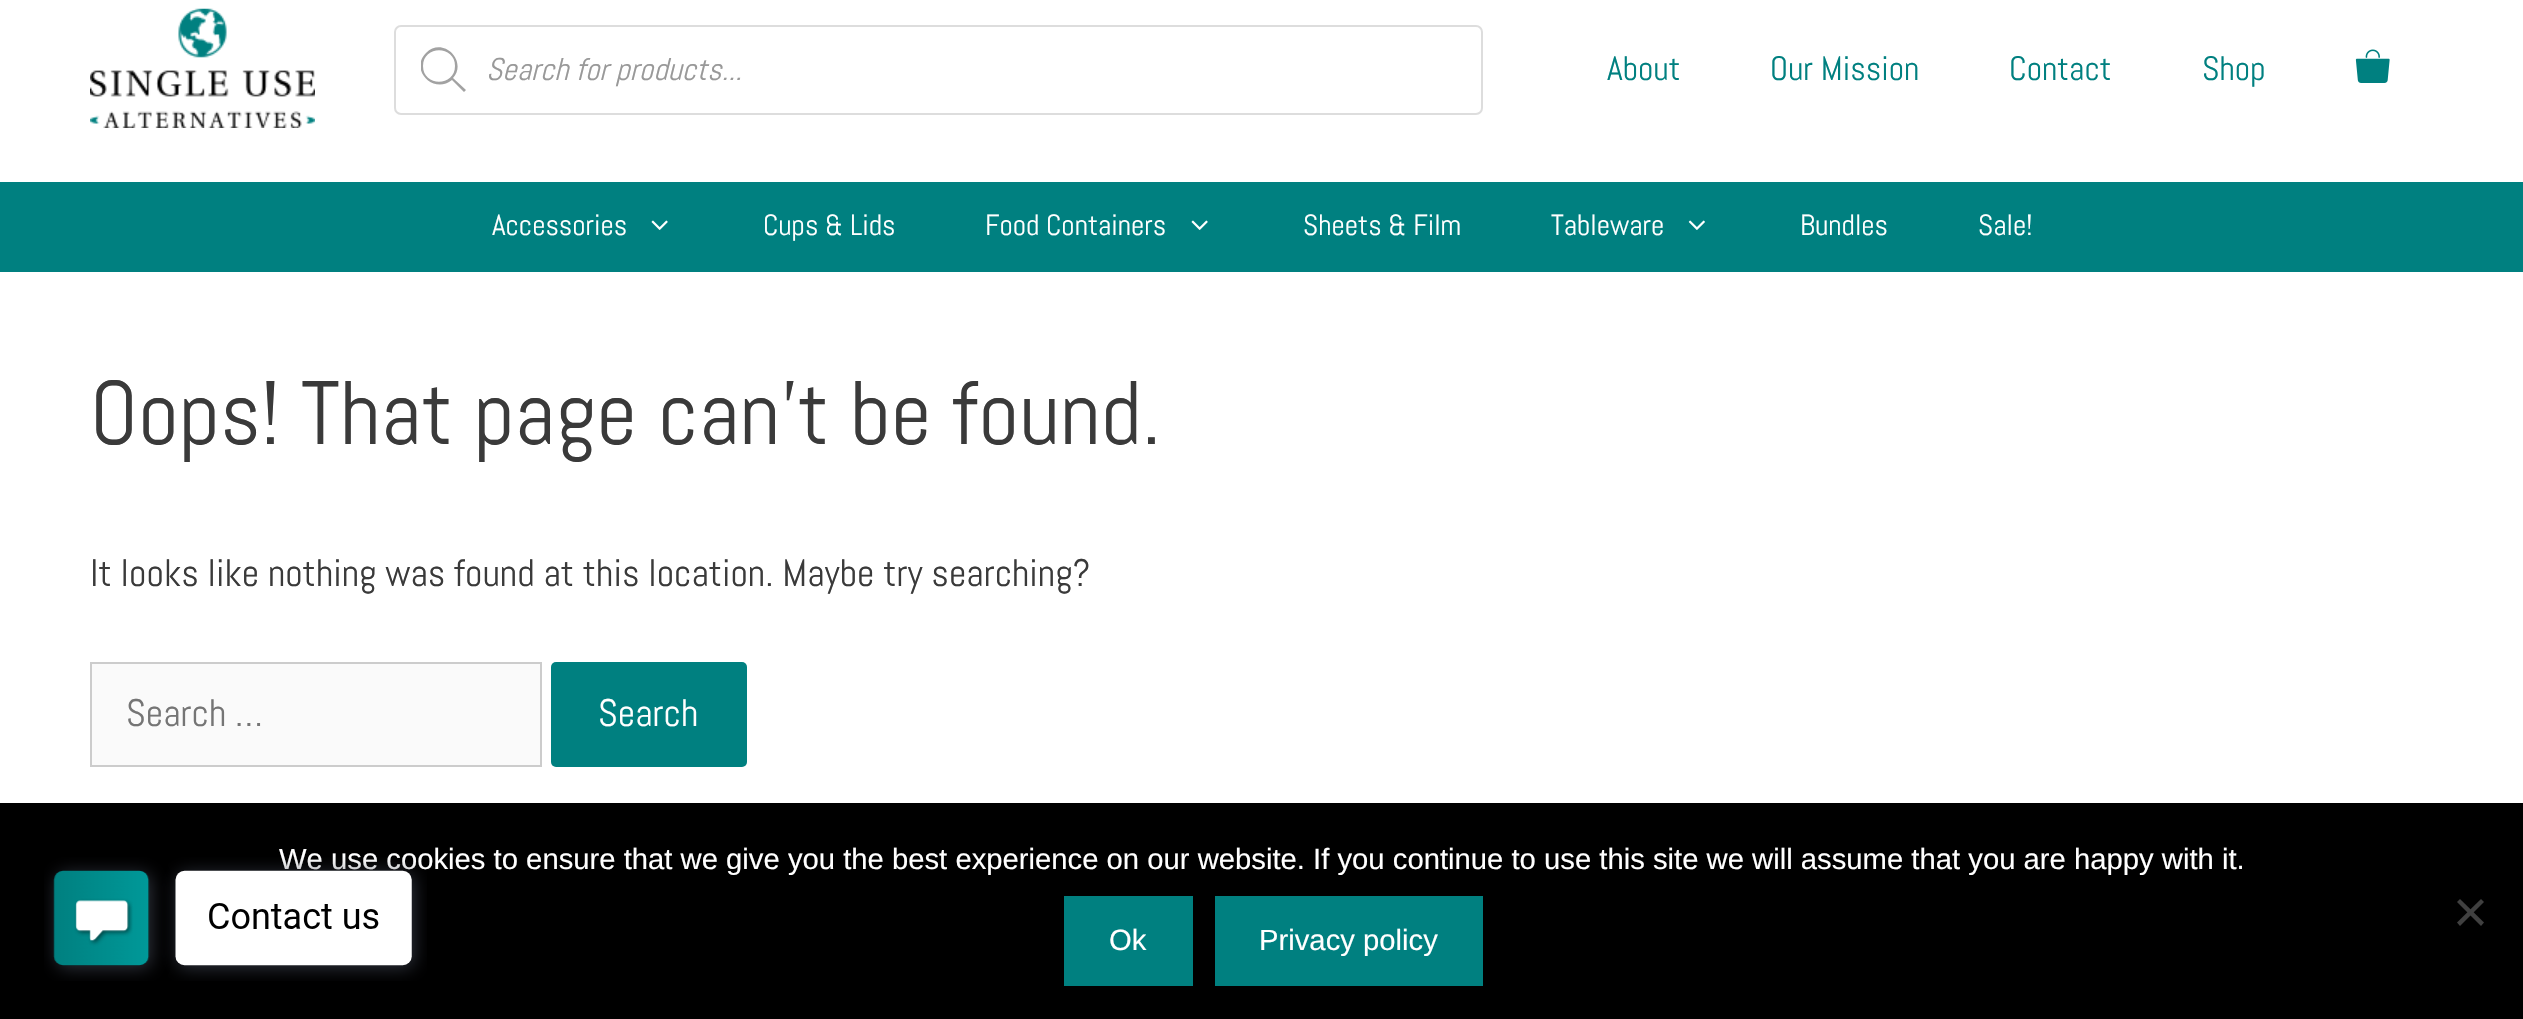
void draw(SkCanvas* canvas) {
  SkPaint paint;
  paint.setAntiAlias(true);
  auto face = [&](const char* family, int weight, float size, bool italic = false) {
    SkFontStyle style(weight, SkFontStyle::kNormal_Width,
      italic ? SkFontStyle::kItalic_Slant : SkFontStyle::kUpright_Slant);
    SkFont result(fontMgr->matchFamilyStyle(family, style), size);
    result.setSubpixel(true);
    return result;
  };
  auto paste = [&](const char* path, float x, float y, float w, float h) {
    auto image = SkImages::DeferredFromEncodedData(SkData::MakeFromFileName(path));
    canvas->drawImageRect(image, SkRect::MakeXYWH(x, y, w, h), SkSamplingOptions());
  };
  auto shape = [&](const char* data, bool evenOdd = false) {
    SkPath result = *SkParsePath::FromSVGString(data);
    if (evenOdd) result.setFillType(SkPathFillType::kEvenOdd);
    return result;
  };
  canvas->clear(0xff008080);
  paint.setColor(0xffffffff);
  canvas->drawRect(SkRect::MakeXYWH(0, 0, 2523, 182), paint);
  paste("img/1.png", 90, 8, 225, 120);
  paint.setStroke(true);
  paint.setStrokeWidth(2);
  paint.setColor(0xffdddddd);
  canvas->drawRoundRect(SkRect::MakeXYWH(395, 26, 1087, 88), 6, 6, paint);
  canvas->save();
  canvas->clipRect(SkRect::MakeXYWH(421, 47, 45, 45));
  paint.setStroke(false);
  paint.setColor(0xffa2a2a2);
  canvas->drawPath(shape("M466 90L453 78C468 61 443 36 426 53C409 70 434 95 452 80L464 92ZM423 66C423 45 455 45 455 66C455 87 423 87 423 66Z"), paint);
  canvas->restore();
  paste("img/2.png", 2355, 49, 35, 34);
  paste("img/3.png", 651, 220, 17, 10);
  paste("img/3.png", 1191, 220, 17, 10);
  paste("img/4.png", 1688, 220, 17, 10);
  paint.setColor(0xffffffff);
  canvas->drawRect(SkRect::MakeXYWH(0, 272, 2523, 531), paint);
  paint.setColor(0xfffafafa);
  canvas->drawRect(SkRect::MakeXYWH(91, 663, 450, 103), paint);
  paint.setStroke(true);
  paint.setColor(0xffcccccc);
  canvas->drawRect(SkRect::MakeXYWH(91, 663, 450, 103), paint);
  paint.setStroke(false);
  paint.setColor(0xff008080);
  canvas->drawRoundRect(SkRect::MakeXYWH(551, 662, 196, 105), 5, 5, paint);
  paint.setColor(0xff000000);
  canvas->drawRect(SkRect::MakeXYWH(0, 803, 2523, 216), paint);
  paint.setColor(0xff404040);
  canvas->drawPath(shape("M2481 899L2484 902L2460 926L2457 922.5Z"), paint);
  canvas->drawPath(shape("M2457 902L2460 899L2484 922.5L2481 926Z"), paint);
  paint.setColor(0xff008080);
  canvas->drawRect(SkRect::MakeXYWH(1064, 896, 129, 90), paint);
  canvas->drawRect(SkRect::MakeXYWH(1215, 896, 268, 90), paint);
  auto f0 = face("Abel", 400, 31.5f, true);
  paint.setColor(0xff999999);
  canvas->drawString("Search for products...", 486, 80, f0, paint);
  auto f1 = face("Abel", 400, 33.75f);
  paint.setColor(0xff008080);
  {
    const struct { const char* s; float x, y; } items[] = {
      {"About", 1607, 80},
      {"Our Mission", 1770, 80},
      {"Contact", 2009, 80},
      {"Shop", 2202, 80},
    };
    for (auto [s, x, y] : items) {
      canvas->drawString(s, x, y, f1, paint);
    }
  }
  auto f2 = face("Abel", 400, 29.25f);
  paint.setColor(0xffffffff);
  {
    const struct { const char* s; float x, y; } items[] = {
      {"Accessories", 492, 235},
      {"Cups & Lids", 763, 235},
      {"Food Containers", 985, 235},
      {"Sheets & Film", 1303, 235},
      {"Tableware", 1551, 235},
      {"Bundles", 1800, 235},
      {"Sale!", 1978, 235},
    };
    for (auto [s, x, y] : items) {
      canvas->drawString(s, x, y, f2, paint);
    }
  }
  auto f3 = face("Abel", 400, 90);
  paint.setColor(0xff3a3a3a);
  canvas->drawString("Oops! That page can’t be found.", 90, 444, f3, paint);
  auto f4 = face("Abel", 400, 38.25f);
  canvas->drawString("It looks like nothing was found at this location. Maybe try searching?", 90, 586, f4, paint);
  paint.setColor(0xff757575);
  canvas->drawString("Search …", 126, 726, f4, paint);
  paint.setColor(0xffffffff);
  canvas->drawString("Search", 598, 726, f4, paint);
  auto f5 = face("Liberation Sans", 400, 29.25f);
  canvas->drawString("We use cookies to ensure that we give you the best experience on our website. If you continue to use this site we will assume that you are happy with it.", 279, 869, f5, paint);
  paste("img/5.png", 44, 857, 383, 124);
  canvas->drawString("Ok", 1109, 950, f5, paint);
  canvas->drawString("Privacy policy", 1259, 950, f5, paint);
}
